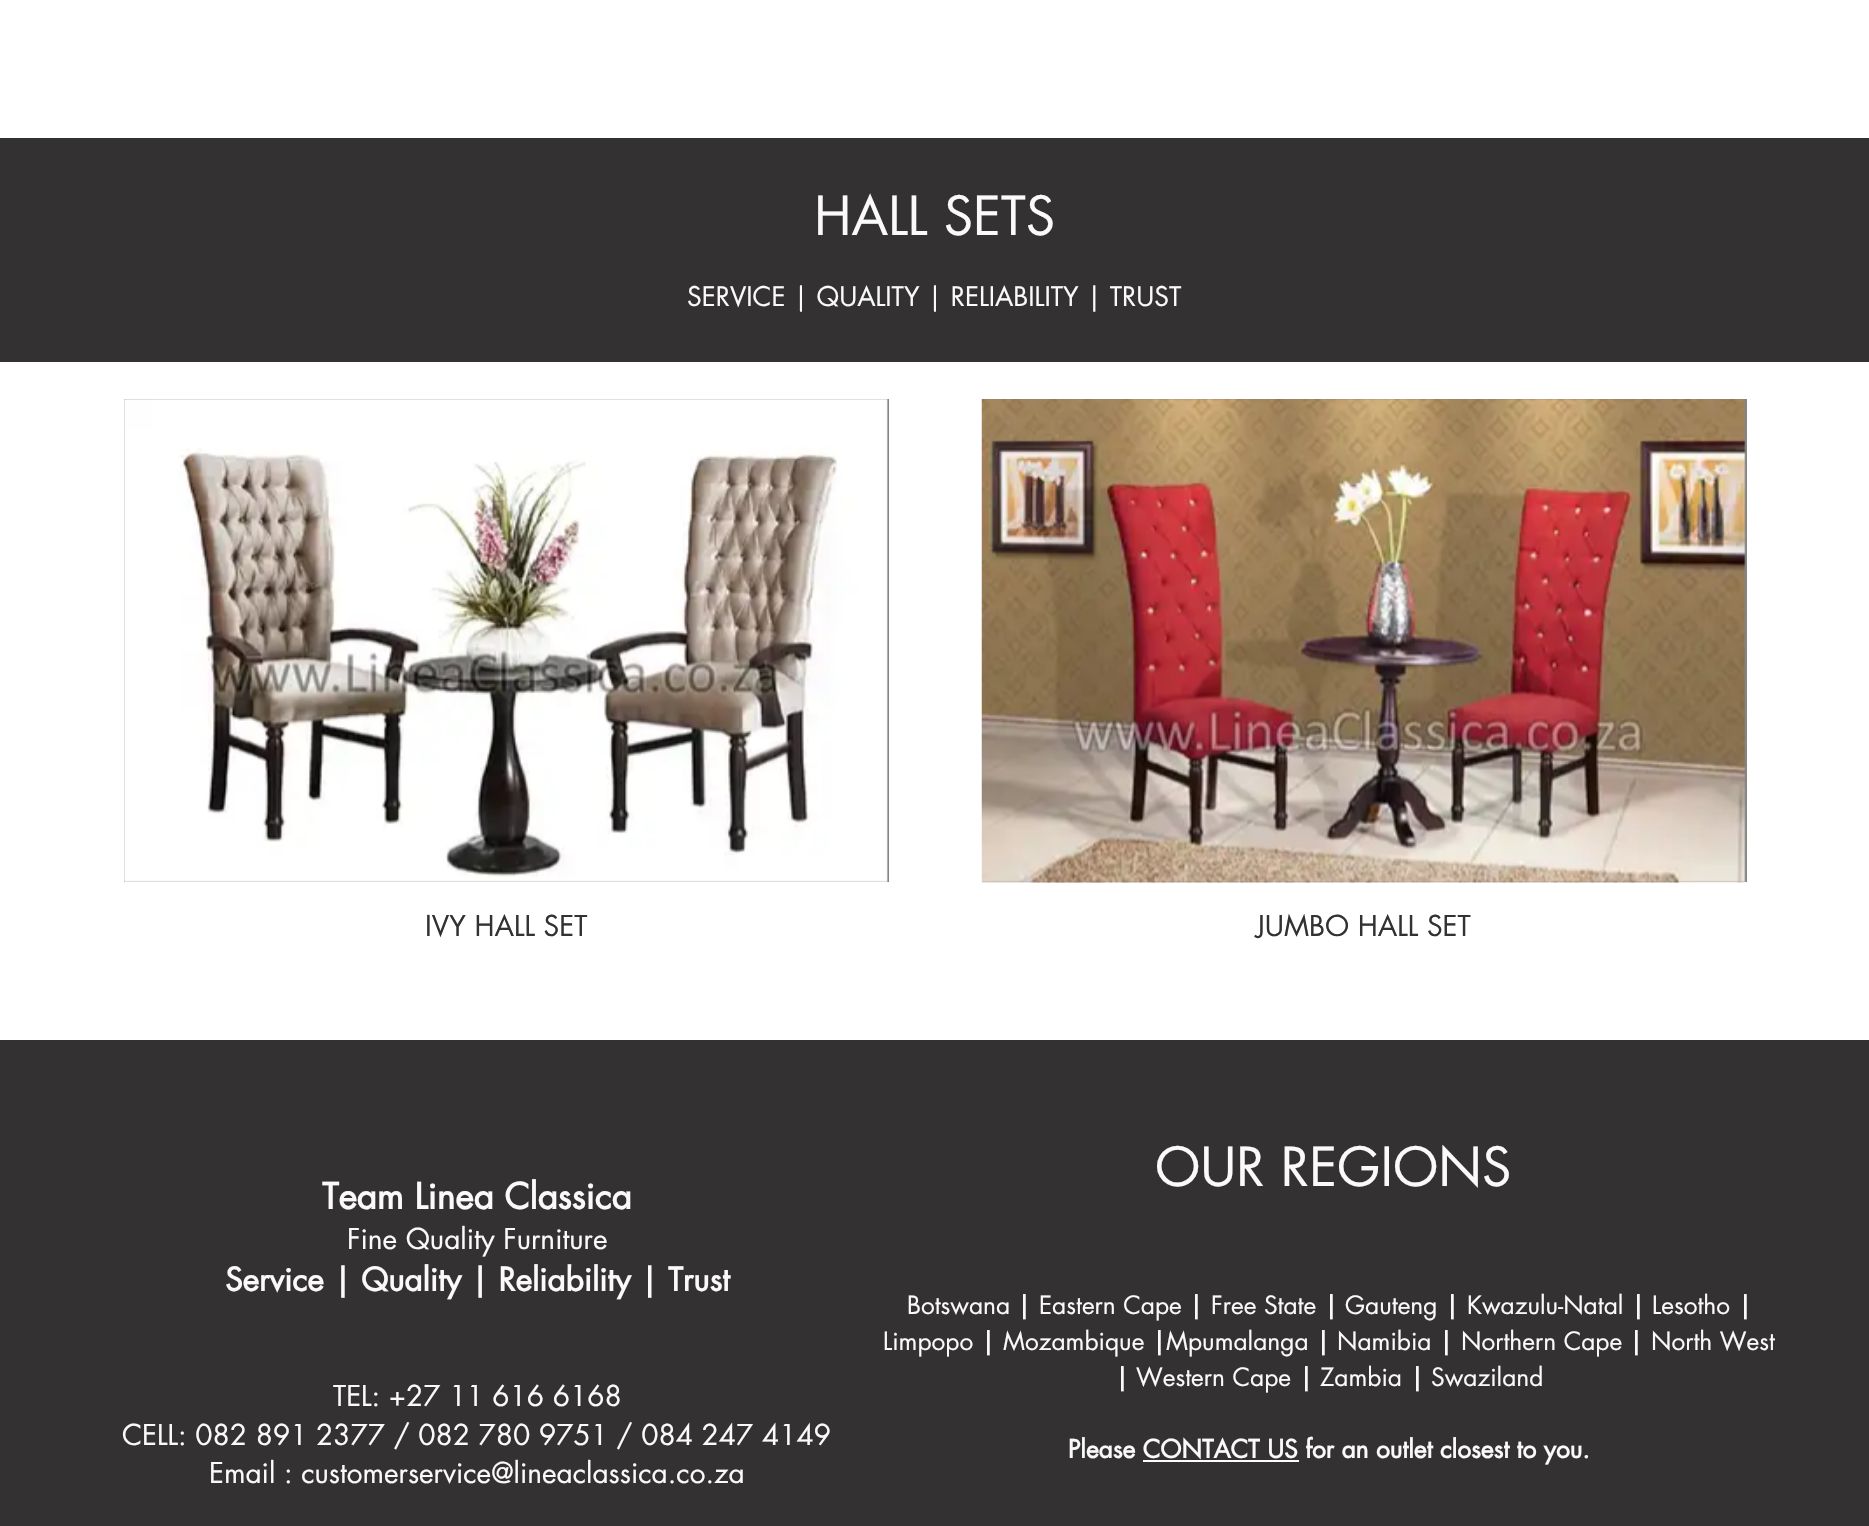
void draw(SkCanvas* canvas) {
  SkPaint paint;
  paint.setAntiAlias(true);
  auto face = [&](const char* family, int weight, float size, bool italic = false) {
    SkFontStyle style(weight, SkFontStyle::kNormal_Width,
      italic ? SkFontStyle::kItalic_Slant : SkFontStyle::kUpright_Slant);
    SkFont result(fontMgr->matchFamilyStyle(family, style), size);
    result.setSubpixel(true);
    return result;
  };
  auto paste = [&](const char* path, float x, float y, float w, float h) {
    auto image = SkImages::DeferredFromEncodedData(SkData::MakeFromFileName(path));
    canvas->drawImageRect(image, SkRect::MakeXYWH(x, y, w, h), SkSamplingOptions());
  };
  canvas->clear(0xffffffff);
  paint.setColor(0xff333131);
  canvas->drawRect(SkRect::MakeXYWH(0, 138, 1869, 224), paint);
  paint.setColor(0xff858484);
  canvas->drawRect(SkRect::MakeXYWH(124, 399, 765, 483), paint);
  paste("img/1.png", 124, 399, 764, 483);
  canvas->drawRect(SkRect::MakeXYWH(982, 399, 765, 483), paint);
  paste("img/2.png", 981, 399, 765, 484);
  paint.setColor(0xff333131);
  canvas->drawRect(SkRect::MakeXYWH(0, 1040, 1869, 486), paint);
  auto f0 = face("futura", 400, 52.5f);
  paint.setColor(0xfffafafa);
  canvas->drawString("HALL SETS", 814, 235, f0, paint);
  auto f1 = face("futura", 400, 26.25f);
  canvas->drawString("SERVICE | QUALITY | RELIABILITY | TRUST", 687, 306, f1, paint);
  auto f2 = face("futura", 400, 28);
  paint.setColor(0xff333131);
  canvas->drawString("IVY HALL SET", 425, 936, f2, paint);
  canvas->drawString("JUMBO HALL SET", 1256, 936, f2, paint);
  paint.setColor(0xfffafafa);
  canvas->drawString("OUR REGIONS", 1155, 1186, f0, paint);
  auto f3 = face("futura", 700, 35);
  canvas->drawString("Team Linea Classica", 322, 1209, f3, paint);
  canvas->drawString("Fine Quality Furniture", 347, 1249, f2, paint);
  auto f4 = face("futura", 700, 31.5f);
  canvas->drawString("Service | Quality | Reliability | Trust", 225, 1291, f4, paint);
  {
    const struct { const char* s; float x, y; } items[] = {
      {"TEL: +27 11 616 6168", 333, 1406},
      {"CELL: 082 891 2377 / 082 780 9751 / 084 247 4149", 122, 1445},
      {"Email : customerservice@lineaclassica.co.za", 209, 1483},
    };
    for (auto [s, x, y] : items) {
      canvas->drawString(s, x, y, f2, paint);
    }
  }
  auto f5 = face("futura", 400, 24.5f);
  canvas->drawString("Botswana", 907, 1314, f5, paint);
  auto f6 = face("futura", 700, 24.5f);
  canvas->drawString("|", 1017, 1314, f6, paint);
  canvas->drawString("Eastern Cape", 1039, 1314, f5, paint);
  canvas->drawString("|", 1189, 1314, f6, paint);
  canvas->drawString("Free State", 1211, 1314, f5, paint);
  canvas->drawString("|", 1324, 1314, f6, paint);
  canvas->drawString("Gauteng", 1345, 1314, f5, paint);
  canvas->drawString("|", 1445, 1314, f6, paint);
  canvas->drawString("Kwazulu-Natal", 1467, 1314, f5, paint);
  canvas->drawString("|", 1631, 1314, f6, paint);
  canvas->drawString("Lesotho", 1652, 1314, f5, paint);
  canvas->drawString("|", 1738, 1314, f6, paint);
  canvas->drawString("Limpopo", 883, 1350, f5, paint);
  canvas->drawString("|", 981, 1350, f6, paint);
  canvas->drawString("Mozambique", 1003, 1350, f5, paint);
  canvas->drawString("|", 1152, 1350, f6, paint);
  canvas->drawString("Mpumalanga", 1166, 1350, f5, paint);
  canvas->drawString("|", 1316, 1350, f6, paint);
  canvas->drawString("Namibia", 1337, 1350, f5, paint);
  canvas->drawString("|", 1439, 1350, f6, paint);
  canvas->drawString("Northern Cape", 1461, 1350, f5, paint);
  canvas->drawString("|", 1629, 1350, f6, paint);
  canvas->drawString("North West", 1651, 1350, f5, paint);
  canvas->drawString("|", 1115, 1386, f6, paint);
  canvas->drawString("Western Cape", 1136, 1386, f5, paint);
  canvas->drawString("|", 1299, 1386, f6, paint);
  canvas->drawString("Zambia", 1320, 1386, f5, paint);
  canvas->drawString("|", 1410, 1386, f6, paint);
  canvas->drawString("Swaziland", 1431, 1386, f5, paint);
  canvas->drawString("Please CONTACT US for an outlet closest to you.", 1068, 1458, f6, paint);
  paint.setColor(0xffffffff);
  canvas->drawRect(SkRect::MakeXYWH(1143, 1460, 156, 2), paint);
}
